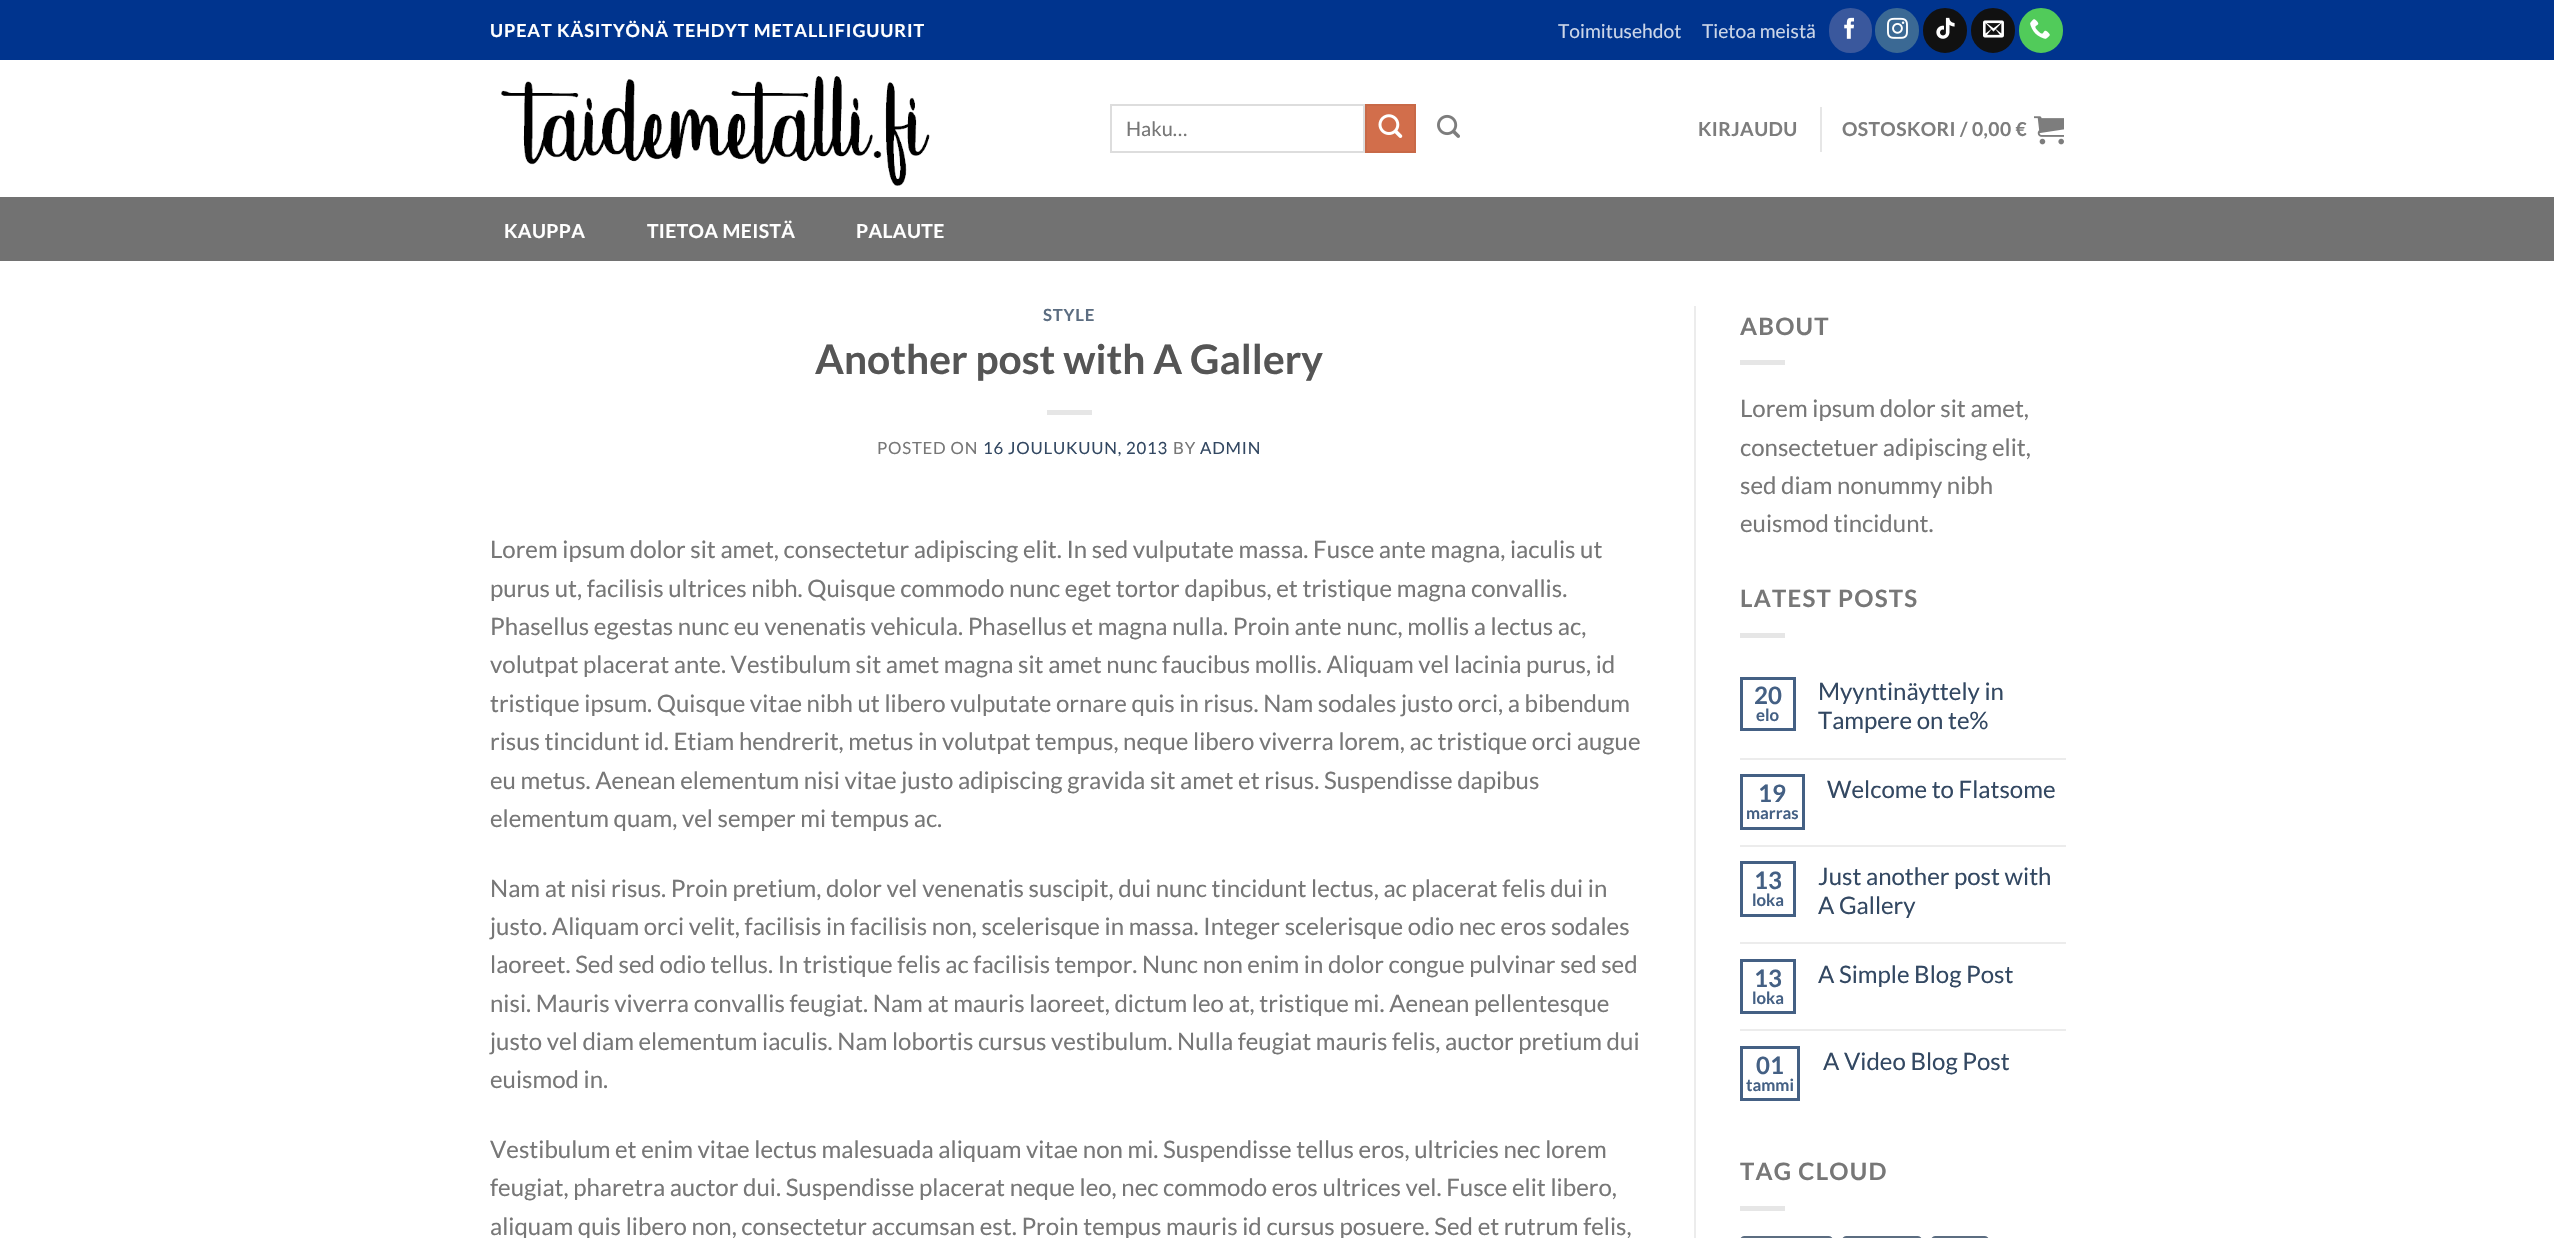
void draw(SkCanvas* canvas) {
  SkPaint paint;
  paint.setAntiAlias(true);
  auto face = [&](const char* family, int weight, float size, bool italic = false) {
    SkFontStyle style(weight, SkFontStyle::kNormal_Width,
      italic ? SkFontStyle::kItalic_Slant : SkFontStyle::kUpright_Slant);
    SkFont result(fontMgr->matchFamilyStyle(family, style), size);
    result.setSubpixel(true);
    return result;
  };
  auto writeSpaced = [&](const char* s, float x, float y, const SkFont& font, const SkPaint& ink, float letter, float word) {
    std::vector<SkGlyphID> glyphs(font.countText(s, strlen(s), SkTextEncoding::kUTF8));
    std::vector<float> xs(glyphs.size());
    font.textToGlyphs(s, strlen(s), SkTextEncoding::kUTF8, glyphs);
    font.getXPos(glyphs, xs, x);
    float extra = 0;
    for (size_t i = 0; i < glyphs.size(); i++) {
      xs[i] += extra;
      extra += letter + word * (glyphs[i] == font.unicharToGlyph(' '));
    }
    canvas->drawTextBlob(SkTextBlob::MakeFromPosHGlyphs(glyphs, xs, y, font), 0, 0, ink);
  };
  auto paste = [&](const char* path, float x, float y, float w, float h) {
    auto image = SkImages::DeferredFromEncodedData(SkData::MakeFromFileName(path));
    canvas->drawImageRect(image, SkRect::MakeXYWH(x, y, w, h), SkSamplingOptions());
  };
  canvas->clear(0xffffffff);
  paint.setColor(0xff00348e);
  canvas->drawRect(SkRect::MakeXYWH(0, 0, 2554, 60), paint);
  paint.setColor(0xff3a589d);
  canvas->drawRoundRect(SkRect::MakeXYWH(1830, 9, 41, 43), 20.5f, 20.5f, paint);
  paint.setStroke(true);
  paint.setStrokeWidth(2);
  canvas->drawRoundRect(SkRect::MakeXYWH(1830, 9, 41, 43), 20.5f, 20.5f, paint);
  paste("img/1.png", 1844, 17, 10, 22);
  paint.setStroke(false);
  paint.setColor(0xff3b6994);
  canvas->drawRoundRect(SkRect::MakeXYWH(1876, 9, 42, 43), 21, 21, paint);
  paint.setStroke(true);
  canvas->drawRoundRect(SkRect::MakeXYWH(1876, 9, 42, 43), 21, 21, paint);
  paste("img/2.png", 1887, 17, 21, 22);
  paint.setStroke(false);
  paint.setColor(0xff111111);
  canvas->drawRoundRect(SkRect::MakeXYWH(1924, 9, 42, 43), 21, 21, paint);
  paint.setStroke(true);
  canvas->drawRoundRect(SkRect::MakeXYWH(1924, 9, 42, 43), 21, 21, paint);
  paste("img/3.png", 1936, 17, 19, 22);
  paint.setStroke(false);
  canvas->drawRoundRect(SkRect::MakeXYWH(1972, 9, 42, 43), 21, 21, paint);
  paint.setStroke(true);
  canvas->drawRoundRect(SkRect::MakeXYWH(1972, 9, 42, 43), 21, 21, paint);
  paste("img/4.png", 1983, 20, 21, 18);
  paint.setStroke(false);
  paint.setColor(0xff51cb5a);
  canvas->drawRoundRect(SkRect::MakeXYWH(2020, 9, 42, 43), 21, 21, paint);
  paint.setStroke(true);
  canvas->drawRoundRect(SkRect::MakeXYWH(2020, 9, 42, 43), 21, 21, paint);
  paste("img/5.png", 2030, 19, 20, 20);
  paste("img/6.png", 501, 76, 429, 110);
  paint.setColor(0xffdddddd);
  canvas->drawRect(SkRect::MakeXYWH(1111, 105, 253, 47), paint);
  paint.setStroke(false);
  paint.setColor(0xffd26e4b);
  canvas->drawRect(SkRect::MakeXYWH(1366, 105, 49, 47), paint);
  paint.setStroke(true);
  paint.setColor(0xffc86947);
  canvas->drawRect(SkRect::MakeXYWH(1366, 105, 49, 47), paint);
  paste("img/7.png", 1378, 114, 25, 24);
  paste("img/8.png", 1437, 114, 23, 24);
  paint.setStroke(false);
  paint.setColor(0xffe6e6e6);
  canvas->drawRect(SkRect::MakeXYWH(1820, 107, 2, 45), paint);
  paste("img/9.png", 2034, 116, 30, 29);
  {
    const struct { float x, y, w, h; SkColor color; } items[] = {
      {0, 197, 2554, 64, 0xff727272},
      {1047, 410, 45, 5, 0xffe6e6e6},
      {1694, 306, 2, 932, 0xffececec},
      {1740, 360, 45, 5, 0xffe6e6e6},
      {1740, 633, 45, 5, 0xffe6e6e6},
    };
    for (auto [x, y, w, h, color] : items) {
      paint.setColor(color);
      canvas->drawRect(SkRect::MakeXYWH(x, y, w, h), paint);
    }
  }
  paint.setStroke(true);
  paint.setStrokeWidth(3);
  paint.setColor(0xff446084);
  canvas->drawRect(SkRect::MakeXYWH(1741.5f, 678.5f, 53, 51), paint);
  paint.setStroke(false);
  paint.setColor(0xffececec);
  canvas->drawRect(SkRect::MakeXYWH(1740, 758, 326, 2), paint);
  paint.setStroke(true);
  paint.setColor(0xff446084);
  canvas->drawRect(SkRect::MakeXYWH(1741.5f, 775.5f, 62, 53), paint);
  paint.setStroke(false);
  paint.setColor(0xffececec);
  canvas->drawRect(SkRect::MakeXYWH(1740, 845, 326, 2), paint);
  paint.setStroke(true);
  paint.setColor(0xff446084);
  canvas->drawRect(SkRect::MakeXYWH(1741.5f, 862.5f, 53, 53), paint);
  paint.setStroke(false);
  paint.setColor(0xffececec);
  canvas->drawRect(SkRect::MakeXYWH(1740, 942, 326, 2), paint);
  paint.setStroke(true);
  paint.setColor(0xff446084);
  canvas->drawRect(SkRect::MakeXYWH(1741.5f, 960.5f, 53, 52), paint);
  paint.setStroke(false);
  paint.setColor(0xffececec);
  canvas->drawRect(SkRect::MakeXYWH(1740, 1029, 326, 2), paint);
  paint.setStroke(true);
  paint.setColor(0xff446084);
  canvas->drawRect(SkRect::MakeXYWH(1741.5f, 1047.5f, 57, 52), paint);
  paint.setStroke(false);
  paint.setColor(0xffe6e6e6);
  canvas->drawRect(SkRect::MakeXYWH(1740, 1206, 45, 5), paint);
  paint.setStroke(true);
  paint.setStrokeWidth(2);
  paint.setColor(0xff5c6d81);
  canvas->drawRoundRect(SkRect::MakeXYWH(1741, 1237, 91, 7), 4, 4, paint);
  canvas->drawRoundRect(SkRect::MakeXYWH(1843, 1237, 78, 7), 4, 4, paint);
  canvas->drawRoundRect(SkRect::MakeXYWH(1932, 1237, 56, 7), 4, 4, paint);
  auto f0 = face("Lato", 700, 18);
  paint.setStroke(false);
  paint.setColor(0xffffffff);
  writeSpaced("UPEAT KÄSITYÖNÄ TEHDYT METALLIFIGUURIT", 490, 37, f0, paint, 0.9f, 0);
  auto f1 = face("Lato", 400, 19.25f);
  paint.setColor(0xffccd6e8);
  canvas->drawString("Toimitusehdot", 1558, 38, f1, paint);
  canvas->drawString("Tietoa meistä", 1702, 38, f1, paint);
  auto f2 = face("Lato", 400, 20);
  paint.setColor(0xff777777);
  canvas->drawString("Haku…", 1126, 136, f2, paint);
  auto f3 = face("Lato", 700, 19.25f);
  paint.setColor(0xff7d7d7d);
  writeSpaced("KIRJAUDU", 1698, 136, f3, paint, 0.4f, 0);
  writeSpaced("OSTOSKORI / 0,00 €", 1842, 136, f3, paint, 0.4f, 0);
  paint.setColor(0xffffffff);
  {
    const struct { const char* s; float x, y; } items[] = {
      {"KAUPPA", 504, 238},
      {"TIETOA MEISTÄ", 647, 238},
      {"PALAUTE", 856, 238},
    };
    for (auto [s, x, y] : items) {
      writeSpaced(s, x, y, f3, paint, 0.4f, 0);
    }
  }
  auto f4 = face("Lato", 700, 16.75f);
  paint.setColor(0xff5c6d81);
  writeSpaced("STYLE", 1043, 321, f4, paint, 0.8f, 0);
  auto f5 = face("Lato", 700, 40.75f);
  paint.setColor(0xff555555);
  canvas->drawString("Another post with A Gallery", 815, 374, f5, paint);
  auto f6 = face("Lato", 400, 16.75f);
  paint.setColor(0xff777777);
  writeSpaced("POSTED ON", 877, 454, f6, paint, 0.8f, 0);
  paint.setColor(0xff334862);
  writeSpaced("16 JOULUKUUN, 2013", 983, 454, f6, paint, 0.8f, 0);
  paint.setColor(0xff777777);
  writeSpaced("BY", 1173, 454, f6, paint, 0.8f, 0);
  paint.setColor(0xff334862);
  writeSpaced("ADMIN", 1200, 454, f6, paint, 0.8f, 0);
  auto f7 = face("Lato", 400, 24);
  paint.setColor(0xff777777);
  {
    const struct { const char* s; float x, y; } items[] = {
      {"Lorem ipsum dolor sit amet, consectetur adipiscing elit. In sed vulputate massa. Fusce ante magna, iaculis ut", 490, 558},
      {"purus ut, facilisis ultrices nibh. Quisque commodo nunc eget tortor dapibus, et tristique magna convallis.", 490, 597},
      {"Phasellus egestas nunc eu venenatis vehicula. Phasellus et magna nulla. Proin ante nunc, mollis a lectus ac,", 490, 635},
      {"volutpat placerat ante. Vestibulum sit amet magna sit amet nunc faucibus mollis. Aliquam vel lacinia purus, id", 490, 673},
      {"tristique ipsum. Quisque vitae nibh ut libero vulputate ornare quis in risus. Nam sodales justo orci, a bibendum", 490, 712},
      {"risus tincidunt id. Etiam hendrerit, metus in volutpat tempus, neque libero viverra lorem, ac tristique orci augue", 490, 750},
      {"eu metus. Aenean elementum nisi vitae justo adipiscing gravida sit amet et risus. Suspendisse dapibus", 490, 789},
      {"elementum quam, vel semper mi tempus ac.", 490, 827},
      {"Nam at nisi risus. Proin pretium, dolor vel venenatis suscipit, dui nunc tincidunt lectus, ac placerat felis dui in", 490, 897},
      {"justo. Aliquam orci velit, facilisis in facilisis non, scelerisque in massa. Integer scelerisque odio nec eros sodales", 490, 935},
      {"laoreet. Sed sed odio tellus. In tristique felis ac facilisis tempor. Nunc non enim in dolor congue pulvinar sed sed", 490, 973},
      {"nisi. Mauris viverra convallis feugiat. Nam at mauris laoreet, dictum leo at, tristique mi. Aenean pellentesque", 490, 1012},
      {"justo vel diam elementum iaculis. Nam lobortis cursus vestibulum. Nulla feugiat mauris felis, auctor pretium dui", 490, 1050},
      {"euismod in.", 490, 1088},
      {"Vestibulum et enim vitae lectus malesuada aliquam vitae non mi. Suspendisse tellus eros, ultricies nec lorem", 490, 1158},
      {"feugiat, pharetra auctor dui. Suspendisse placerat neque leo, nec commodo eros ultrices vel. Fusce elit libero,", 490, 1196},
      {"aliquam quis libero non, consectetur accumsan est. Proin tempus mauris id cursus posuere. Sed et rutrum felis,", 490, 1235},
    };
    for (auto [s, x, y] : items) {
      canvas->drawString(s, x, y, f7, paint);
    }
  }
  auto f8 = face("Lato", 700, 24);
  writeSpaced("ABOUT", 1740, 335, f8, paint, 1.25f, 0);
  {
    const struct { const char* s; float x, y; } items[] = {
      {"Lorem ipsum dolor sit amet,", 1740, 417},
      {"consectetuer adipiscing elit,", 1740, 456},
      {"sed diam nonummy nibh", 1740, 494},
      {"euismod tincidunt.", 1740, 532},
    };
    for (auto [s, x, y] : items) {
      canvas->drawString(s, x, y, f7, paint);
    }
  }
  writeSpaced("LATEST POSTS", 1740, 607, f8, paint, 1.25f, 0);
  paint.setColor(0xff446084);
  canvas->drawString("20", 1754, 704, f8, paint);
  canvas->drawString("elo", 1756, 721, f4, paint);
  paint.setColor(0xff334862);
  canvas->drawString("Myyntinäyttely in", 1818, 700, f7, paint);
  canvas->drawString("Tampere on te%", 1818, 729, f7, paint);
  paint.setColor(0xff446084);
  canvas->drawString("19", 1758, 802, f8, paint);
  canvas->drawString("marras", 1746, 819, f4, paint);
  paint.setColor(0xff334862);
  canvas->drawString("Welcome to Flatsome", 1827, 798, f7, paint);
  paint.setColor(0xff446084);
  canvas->drawString("13", 1754, 889, f8, paint);
  canvas->drawString("loka", 1752, 906, f4, paint);
  paint.setColor(0xff334862);
  canvas->drawString("Just another post with", 1818, 885, f7, paint);
  canvas->drawString("A Gallery", 1818, 914, f7, paint);
  paint.setColor(0xff446084);
  canvas->drawString("13", 1754, 987, f8, paint);
  canvas->drawString("loka", 1752, 1004, f4, paint);
  paint.setColor(0xff334862);
  canvas->drawString("A Simple Blog Post", 1818, 983, f7, paint);
  paint.setColor(0xff446084);
  canvas->drawString("01", 1756, 1074, f8, paint);
  canvas->drawString("tammi", 1746, 1091, f4, paint);
  paint.setColor(0xff334862);
  canvas->drawString("A Video Blog Post", 1823, 1070, f7, paint);
  paint.setColor(0xff777777);
  writeSpaced("TAG CLOUD", 1740, 1180, f8, paint, 1.25f, 0);
}
